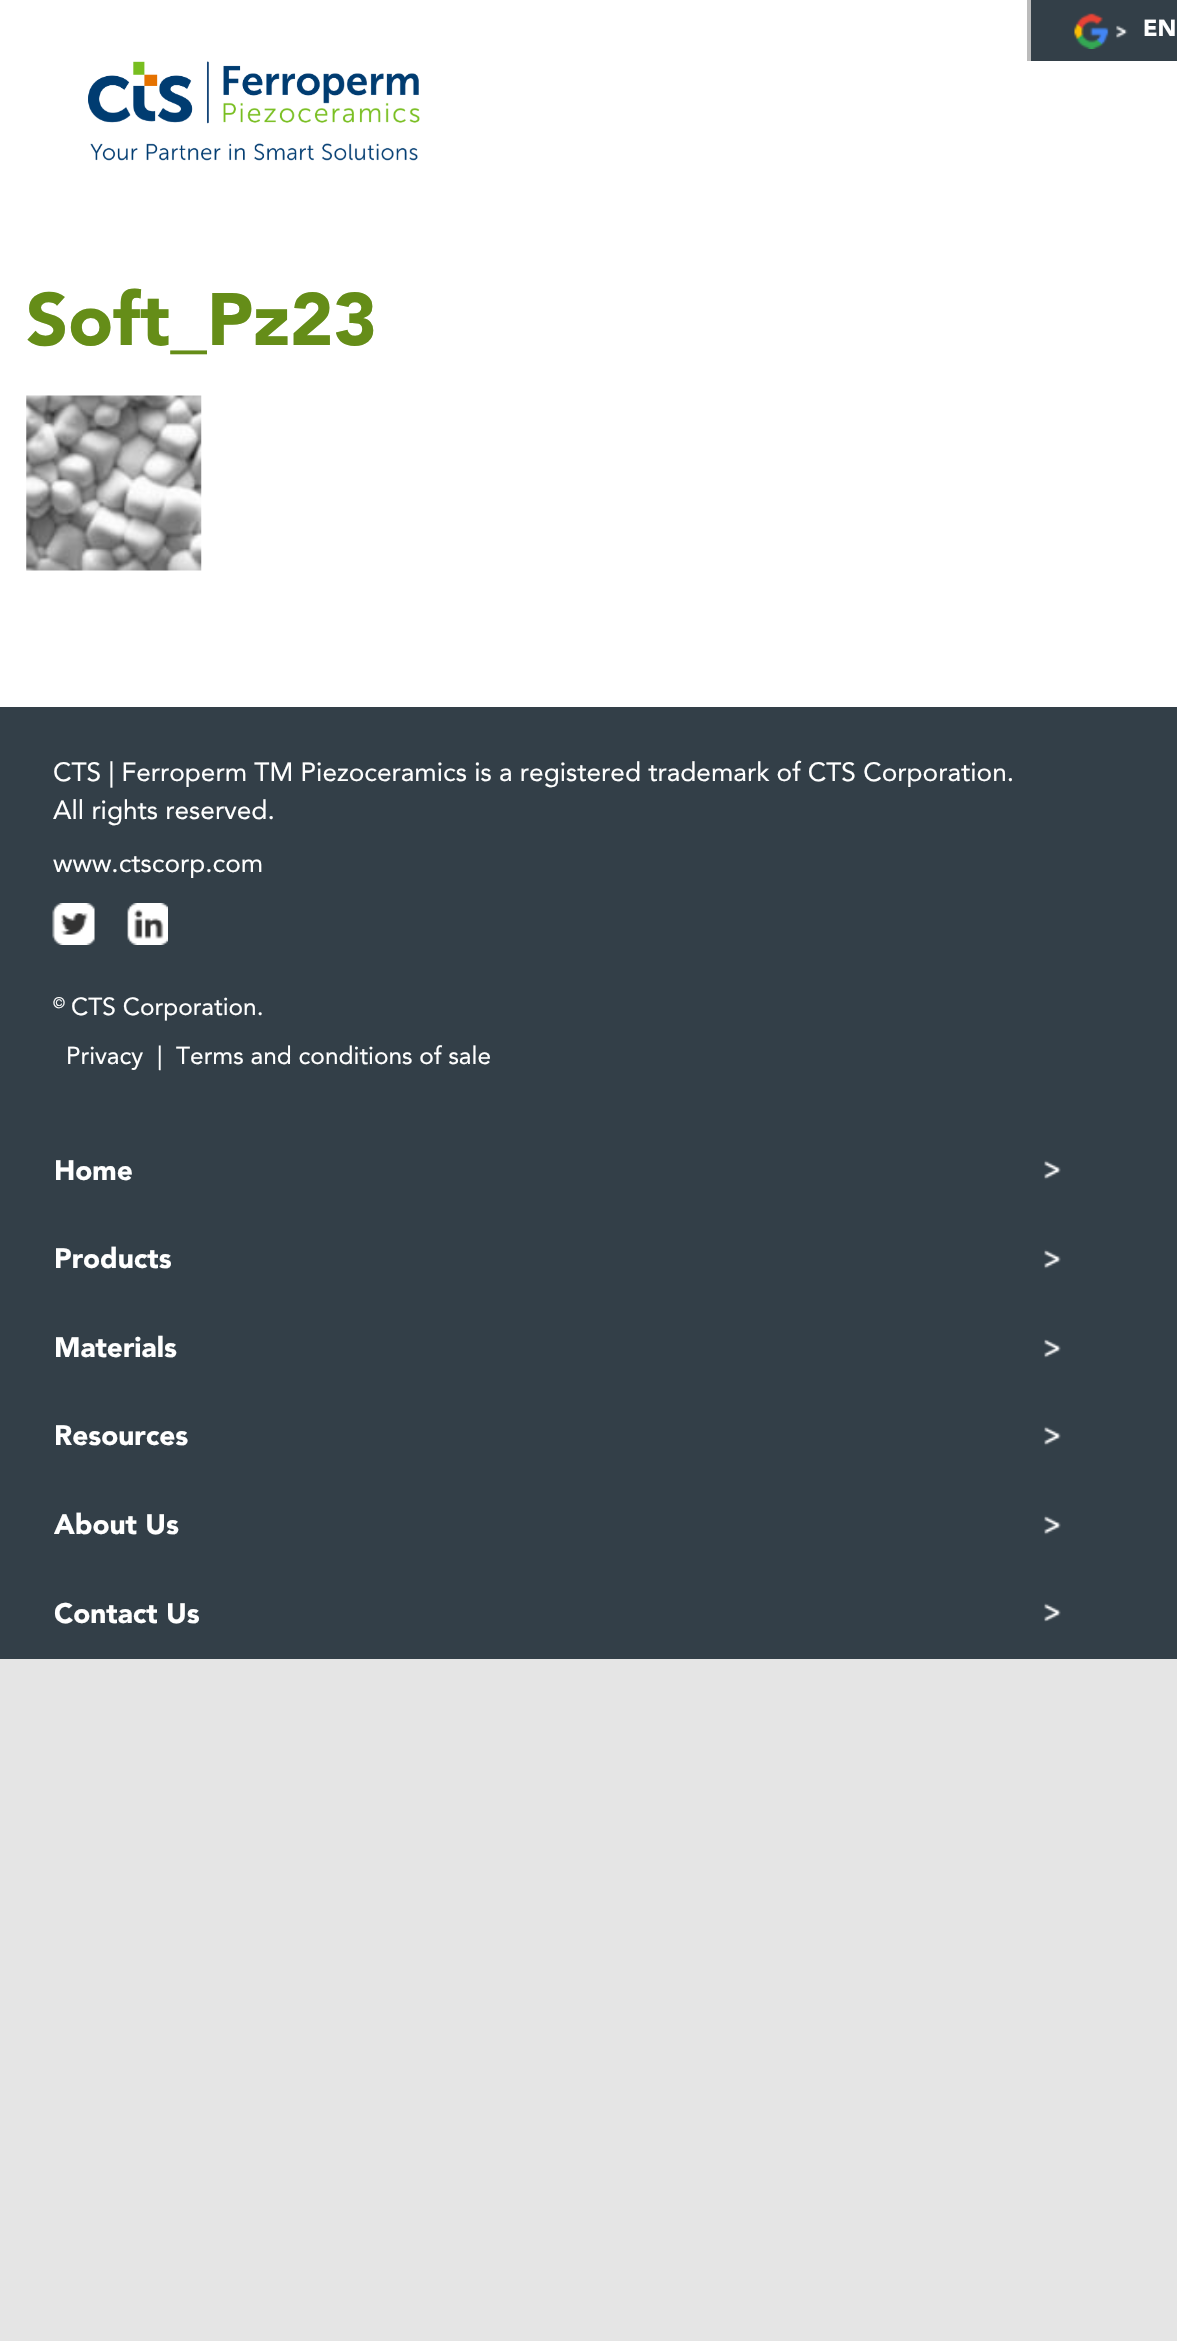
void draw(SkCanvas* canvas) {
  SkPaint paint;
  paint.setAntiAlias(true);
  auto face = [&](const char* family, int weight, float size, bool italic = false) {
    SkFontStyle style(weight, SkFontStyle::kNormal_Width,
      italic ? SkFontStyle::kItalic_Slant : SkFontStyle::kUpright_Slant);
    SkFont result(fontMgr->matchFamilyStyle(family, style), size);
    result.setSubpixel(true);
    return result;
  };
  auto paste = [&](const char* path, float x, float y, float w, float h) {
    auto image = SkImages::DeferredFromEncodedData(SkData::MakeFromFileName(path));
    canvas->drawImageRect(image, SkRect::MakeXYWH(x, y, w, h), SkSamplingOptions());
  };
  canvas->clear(0xffe5e5e5);
  {
    const struct { float x, y, w, h; SkColor color; } items[] = {
      {0, 0, 1177, 707, 0xffffffff},
      {1031, 0, 146, 61, 0xff333f48},
      {1027, 0, 4, 61, 0xffbbbbbb},
    };
    for (auto [x, y, w, h, color] : items) {
      paint.setColor(color);
      canvas->drawRect(SkRect::MakeXYWH(x, y, w, h), paint);
    }
  }
  paste("img/1.png", 1074, 13, 54, 36);
  paste("img/2.png", 88, 61, 332, 100);
  paste("img/3.png", 26, 395, 176, 176);
  paint.setColor(0xff333f48);
  canvas->drawRect(SkRect::MakeXYWH(0, 707, 1177, 952), paint);
  paste("img/4.png", 52, 903, 43, 42);
  paste("img/5.png", 127, 903, 41, 42);
  paste("img/6.png", 1044, 1160, 17, 20);
  paste("img/7.png", 1044, 1249, 17, 20);
  paste("img/8.png", 1044, 1339, 17, 19);
  paste("img/6.png", 1044, 1426, 17, 20);
  paste("img/7.png", 1044, 1515, 17, 20);
  paste("img/9.png", 1044, 1603, 17, 19);
  auto f0 = face("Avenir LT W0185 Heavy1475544", 900, 23);
  paint.setColor(0xffffffff);
  canvas->drawString("EN", 1143, 36, f0, paint);
  auto f1 = face("Avenir LT W0185 Heavy1475544", 900, 73.5f);
  paint.setColor(0xff658d18);
  canvas->drawString("Soft_Pz23", 26, 345, f1, paint);
  auto f2 = face("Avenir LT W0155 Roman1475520", 400, 26.25f);
  paint.setColor(0xffffffff);
  {
    const struct { const char* s; float x, y; } items[] = {
      {"CTS | Ferroperm TM Piezoceramics is a registered trademark of CTS Corporation.", 53, 781},
      {"All rights reserved.", 53, 819},
      {"www.ctscorp.com", 53, 872},
    };
    for (auto [s, x, y] : items) {
      canvas->drawString(s, x, y, f2, paint);
    }
  }
  auto f3 = face("Avenir LT W0155 Roman1475520", 400, 15);
  canvas->drawString("©", 53, 1008, f3, paint);
  auto f4 = face("Avenir LT W0155 Roman1475520", 400, 24.5f);
  {
    const struct { const char* s; float x, y; } items[] = {
      {"CTS Corporation.", 71, 1015},
      {"Privacy", 66, 1064},
      {"|", 157, 1064},
      {"Terms and conditions of sale", 176, 1064},
    };
    for (auto [s, x, y] : items) {
      canvas->drawString(s, x, y, f4, paint);
    }
  }
  auto f5 = face("Avenir LT W0185 Heavy1475544", 900, 28);
  {
    const struct { const char* s; float x, y; } items[] = {
      {"Home", 54, 1180},
      {"Products", 54, 1268},
      {"Materials", 54, 1357},
      {"Resources", 54, 1445},
      {"About Us", 54, 1534},
      {"Contact Us", 54, 1623},
    };
    for (auto [s, x, y] : items) {
      canvas->drawString(s, x, y, f5, paint);
    }
  }
}
